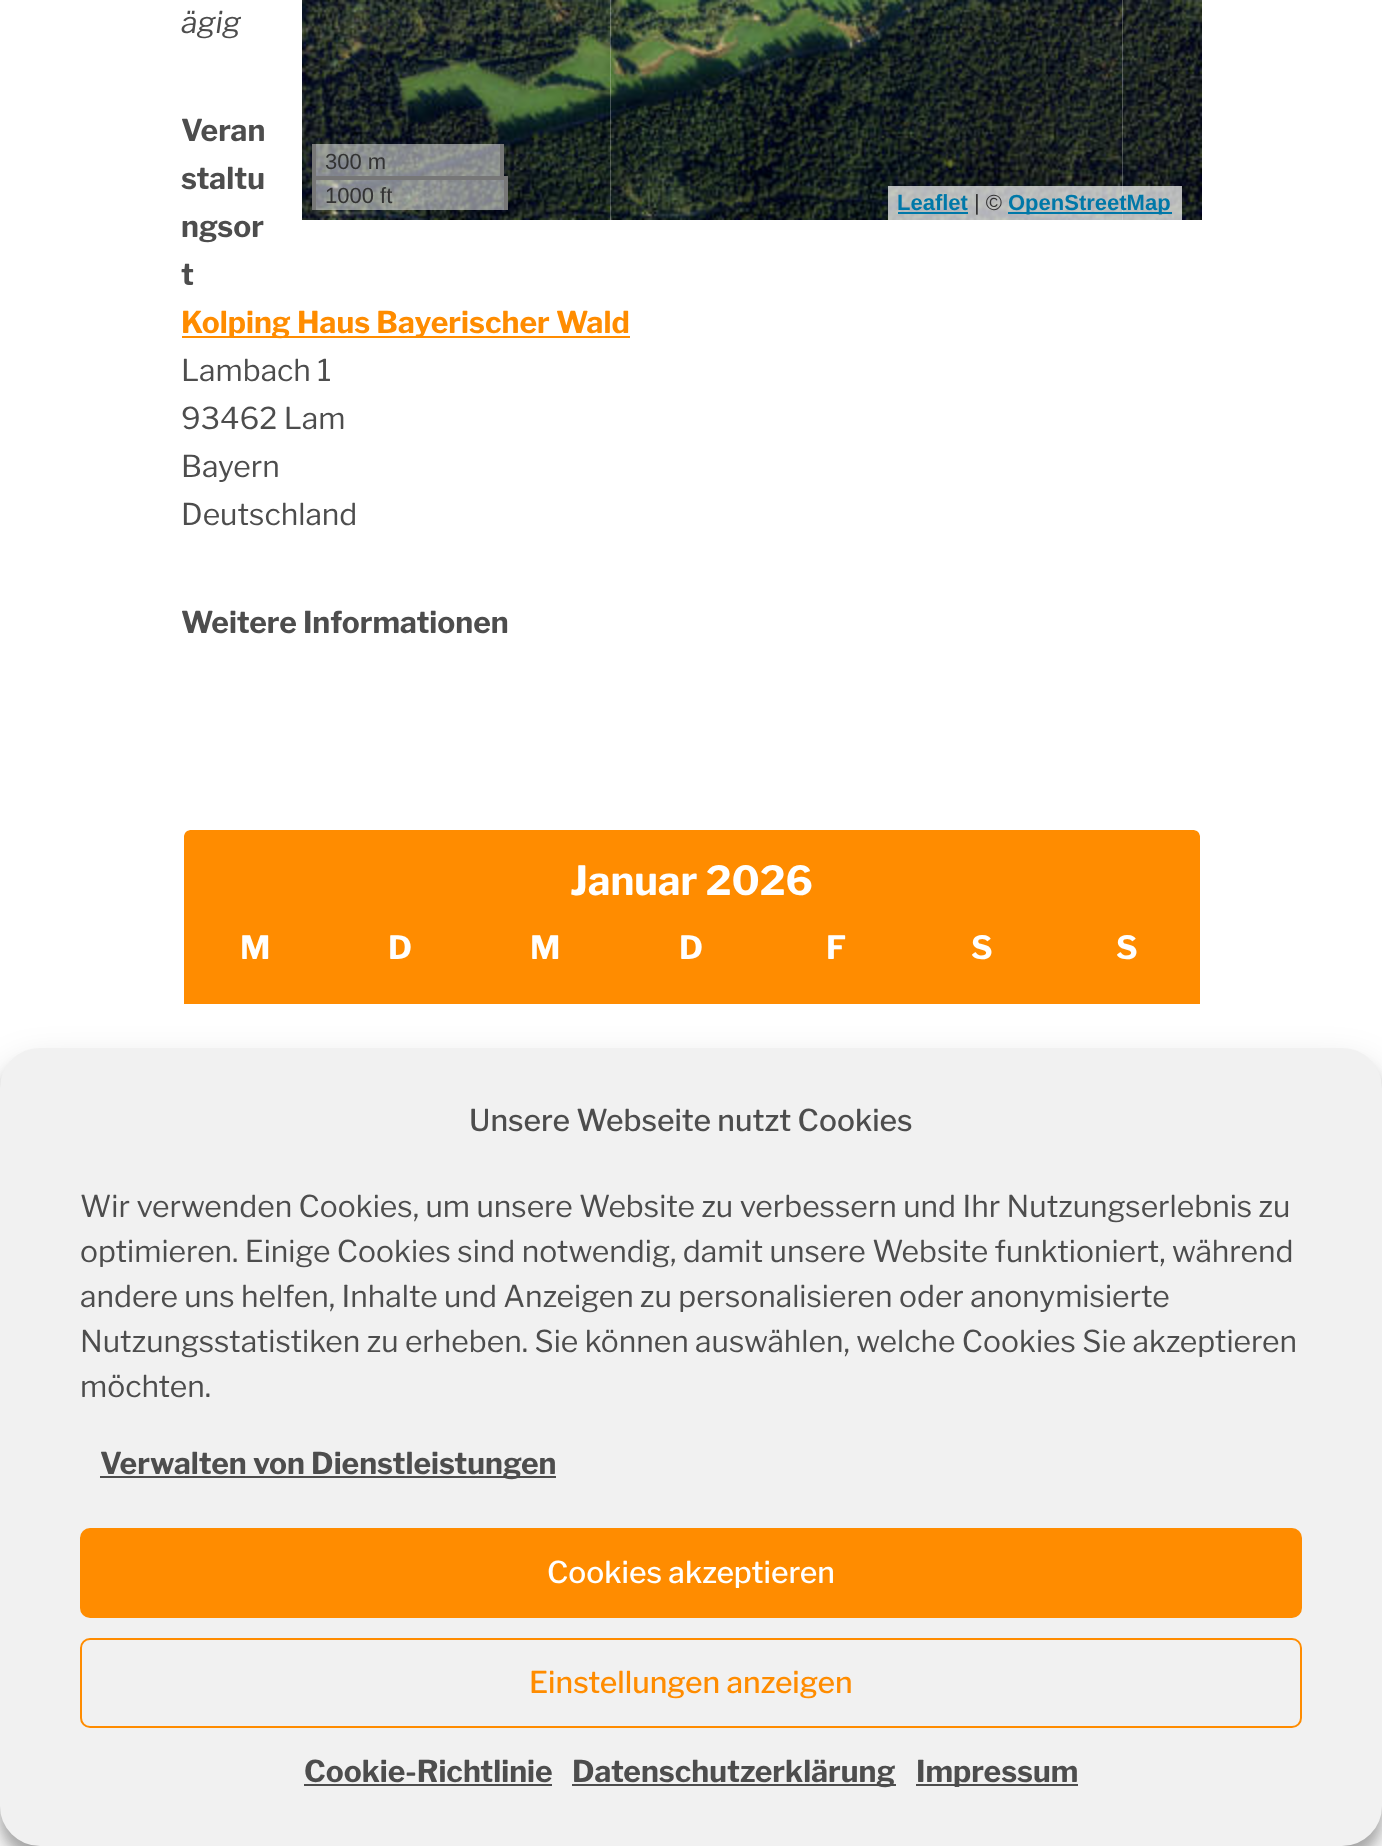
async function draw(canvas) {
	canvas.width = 1382;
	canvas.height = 1846;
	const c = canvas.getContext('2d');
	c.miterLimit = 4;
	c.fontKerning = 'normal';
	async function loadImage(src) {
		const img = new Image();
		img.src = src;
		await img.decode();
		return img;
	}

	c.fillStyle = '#fff';
	c.fillRect(0, 0, 1382, 1846);
	c.font = 'italic 30px Libre Franklin';
	c.fillStyle = '#4d4d4d';
	c.fillText('ägig', 181, 33);
	c.font = 'bold 30px Libre Franklin';
	for (const [text, x, y] of [
		['Veran', 181, 141],
		['staltu', 181, 189],
		['ngsor', 181, 237],
		['t', 181, 285],
	]) {
		c.fillText(text, x, y);
	}
	c.fillStyle = '#ff8c00';
	c.fillRect(182, 336, 448, 2);
	c.fillText('Kolping Haus Bayerischer Wald', 181, 333);
	c.font = '30px Libre Franklin';
	c.fillStyle = '#4d4d4d';
	for (const [text, x, y] of [
		['Lambach 1', 181, 381],
		['93462 Lam', 181, 429],
		['Bayern', 181, 477],
		['Deutschland', 181, 525],
	]) {
		c.fillText(text, x, y);
	}
	c.drawImage(await loadImage('img1.png'), 302, 0, 308, 220);
	c.drawImage(await loadImage('img2.png'), 610, 0, 512, 220);
	c.drawImage(await loadImage('img3.png'), 1121, 0, 81, 220);
	for (const [x, y, w, h, color] of [
		[316, 144, 184, 32, '#ffffff80'],
		[500, 144, 4, 36, '#777'],
		[312, 144, 4, 36, '#777'],
	]) {
		c.fillStyle = color;
		c.fillRect(x, y, w, h);
	}
	c.font = '22px Liberation Sans';
	c.fillStyle = '#333';
	c.fillText('300 m', 325, 169);
	for (const [x, y, w, h, color] of [
		[316, 180, 188, 30, '#ffffff80'],
		[312, 176, 196, 4, '#777'],
		[504, 176, 4, 34, '#777'],
		[312, 176, 4, 34, '#777'],
	]) {
		c.fillStyle = color;
		c.fillRect(x, y, w, h);
	}
	c.fillStyle = '#333';
	c.fillText('1000 ft', 325, 203);
	c.fillStyle = '#ffffffb3';
	c.fillRect(888, 186, 294, 34);
	c.font = 'bold 22px Liberation Sans';
	c.fillStyle = '#0078a8';
	c.fillText('Leaflet', 897, 210);
	c.fillRect(898, 212, 70, 2);
	c.font = '22px Liberation Sans';
	c.fillStyle = '#333';
	c.fillText('| ©', 974, 210);
	c.fillStyle = '#0078a8';
	c.fillRect(1008, 212, 164, 2);
	c.font = 'bold 22px Liberation Sans';
	c.fillText('OpenStreetMap', 1008, 210);
	c.font = 'bold 30px Libre Franklin';
	c.fillStyle = '#4d4d4d';
	c.fillText('Weitere Informationen', 181, 633);
	c.fillStyle = '#ff8c00';
	c.beginPath();
	c.roundRect(184, 830, 1016, 84, [6, 6, 0, 0]);
	c.fill();
	c.fillStyle = '#fff';
	c.beginPath();
	c.moveTo(190, 828);
	c.lineTo(1194, 828);
	c.bezierCurveTo(1198, 828, 1202, 832, 1202, 836);
	c.lineTo(1202, 914);
	c.lineTo(182, 914);
	c.lineTo(182, 836);
	c.bezierCurveTo(182, 832, 186, 828, 190, 828);
	c.closePath();
	c.moveTo(190, 830);
	c.lineTo(1194, 830);
	c.bezierCurveTo(1197, 830, 1200, 833, 1200, 836);
	c.lineTo(1200, 914);
	c.lineTo(184, 914);
	c.lineTo(184, 836);
	c.bezierCurveTo(184, 833, 187, 830, 190, 830);
	c.closePath();
	c.fill('evenodd');
	c.font = 'bold 40px Libre Franklin';
	c.fillText('Januar 2026', 570, 895);
	c.fillStyle = '#ff8c00';
	c.fillRect(184, 914, 1016, 90);
	c.font = 'bold 32px Libre Franklin';
	c.fillStyle = '#fff';
	for (const [text, x, y] of [
		['M', 240, 959],
		['D', 388, 959],
		['M', 530, 959],
		['D', 679, 959],
		['F', 826, 959],
		['S', 971, 959],
		['S', 1116, 959],
	]) {
		c.fillText(text, x, y);
	}
	c.fillStyle = '#0000003b';
	c.filter = 'blur(6px)';
	c.beginPath();
	c.roundRect(0, 1060, 1382, 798, 40);
	c.fill();
	c.filter = 'none';
	c.fillStyle = '#00000030';
	c.filter = 'blur(20px)';
	c.beginPath();
	c.roundRect(0, 1068, 1382, 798, 40);
	c.fill();
	c.filter = 'none';
	c.fillStyle = '#f1f1f1';
	c.fillRect(40, 1068, 1302, 758);
	c.beginPath();
	c.roundRect(10, 1058, 1362, 778, 30);
	c.strokeStyle = '#f1f1f1';
	c.lineWidth = 20;
	c.stroke();
	c.fillRect(1342, 1068, 20, 758);
	c.fillRect(20, 1068, 20, 758);
	c.font = '500 30px Libre Franklin';
	c.fillStyle = '#4d4d4d';
	c.fillText('Unsere Webseite nutzt Cookies', 469, 1131);
	c.font = '30px Libre Franklin';
	for (const [text, x, y] of [
		['Wir verwenden Cookies, um unsere Website zu verbessern und Ihr Nutzungserlebnis zu', 80, 1217],
		['optimieren. Einige Cookies sind notwendig, damit unsere Website funktioniert, während', 80, 1262],
		['andere uns helfen, Inhalte und Anzeigen zu personalisieren oder anonymisierte', 80, 1307],
		['Nutzungsstatistiken zu erheben. Sie können auswählen, welche Cookies Sie akzeptieren', 80, 1352],
		['möchten.', 80, 1397],
	]) {
		c.fillText(text, x, y);
	}
	c.fillRect(100, 1476, 456, 2);
	c.font = 'bold 30px Libre Franklin';
	c.fillText('Verwalten von Dienstleistungen', 100, 1474);
	c.fillStyle = '#ff8c00';
	c.beginPath();
	c.roundRect(81, 1529, 1220, 88, 9);
	c.fill();
	c.strokeStyle = '#ff8c00';
	c.lineWidth = 2;
	c.stroke();
	c.font = '500 30px Libre Franklin';
	c.fillStyle = '#fff';
	c.fillText('Cookies akzeptieren', 547, 1583);
	c.beginPath();
	c.roundRect(81, 1639, 1220, 88, 9);
	c.stroke();
	c.fillStyle = '#ff8c00';
	c.fillText('Einstellungen anzeigen', 529, 1693);
	c.font = 'bold 30px Libre Franklin';
	c.fillStyle = '#4d4d4d';
	c.fillText('Cookie-Richtlinie', 304, 1782);
	c.fillRect(304, 1784, 248, 2);
	c.fillRect(572, 1784, 324, 2);
	c.fillText('Datenschutzerklärung', 572, 1782);
	c.fillRect(916, 1784, 162, 2);
	c.fillText('Impressum', 916, 1782);
}

draw(document.querySelector('canvas'));
